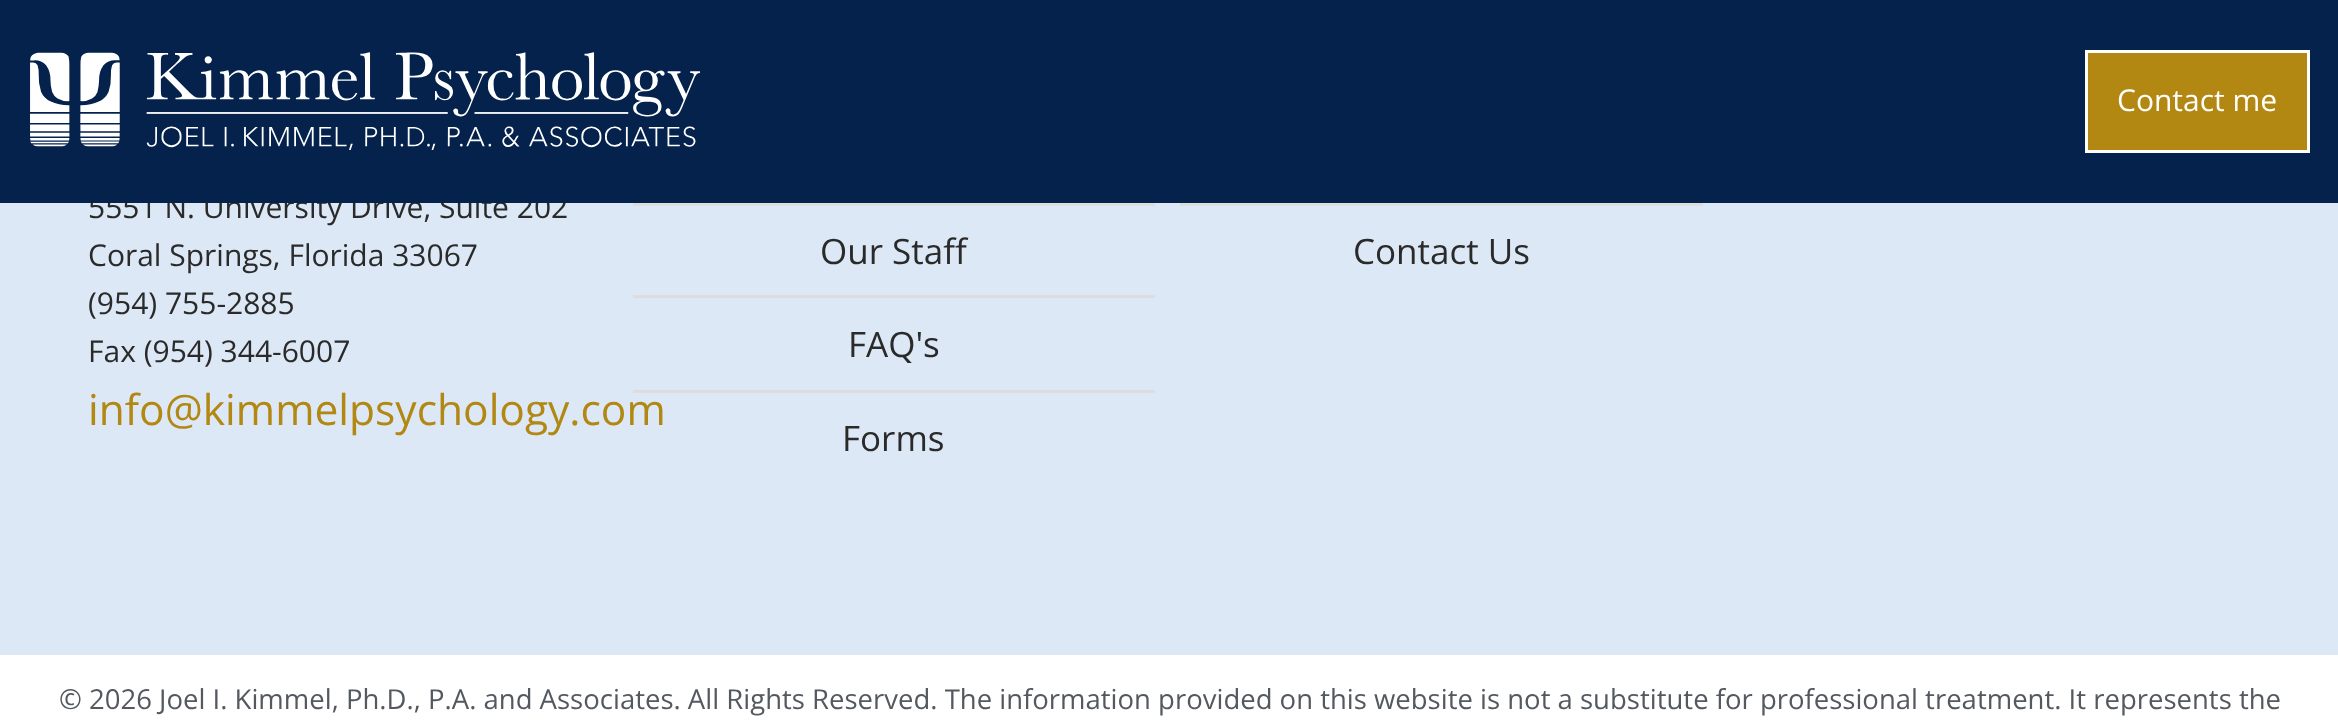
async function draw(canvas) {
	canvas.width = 2338;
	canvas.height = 727;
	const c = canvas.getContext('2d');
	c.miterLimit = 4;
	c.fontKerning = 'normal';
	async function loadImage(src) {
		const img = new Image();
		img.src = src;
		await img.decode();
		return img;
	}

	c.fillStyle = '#fff';
	c.fillRect(0, 0, 2338, 727);
	c.fillStyle = '#dce8f6';
	c.fillRect(0, 203, 2338, 452);
	c.font = '30px Open Sans';
	c.fillStyle = '#2a2a2a';
	c.fillText('5551 N. University Drive, Suite 202', 88, 218);
	c.fillStyle = '#04224b';
	c.fillRect(0, 0, 2338, 203);
	c.drawImage(await loadImage('img1.png'), 30, 52, 670, 98);
	c.fillStyle = '#b28712';
	c.beginPath();
	c.rect(2086.5, 51.5, 222, 100);
	c.fill();
	c.strokeStyle = '#fff';
	c.lineWidth = 3;
	c.stroke();
	c.fillStyle = '#fff';
	c.fillText('Contact me', 2117, 111);
	c.fillStyle = '#2a2a2a';
	for (const [text, x, y] of [
		['Coral Springs, Florida 33067', 88, 266],
		['(954) 755-2885', 88, 314],
		['Fax (954) 344-6007', 88, 362],
	]) {
		c.fillText(text, x, y);
	}
	c.font = '42.5px Open Sans';
	c.fillStyle = '#b28712';
	c.fillText('info@kimmelpsychology.com', 88, 425);
	c.fillStyle = '#ddd';
	c.fillRect(633, 203, 522, 3);
	c.font = '35px Open Sans';
	c.fillStyle = '#2a2a2a';
	c.fillText('Our Staff', 820, 264);
	c.fillStyle = '#ddd';
	c.fillRect(633, 295, 522, 3);
	c.fillStyle = '#2a2a2a';
	c.fillText('FAQ\'s', 848, 357);
	c.fillStyle = '#ddd';
	c.fillRect(633, 390, 522, 3);
	c.fillStyle = '#2a2a2a';
	c.fillText('Forms', 842, 451);
	c.fillStyle = '#ddd';
	c.fillRect(1180, 203, 523, 3);
	c.fillStyle = '#2a2a2a';
	c.fillText('Contact Us', 1353, 264);
	c.font = '27.5px Open Sans';
	c.fillStyle = '#54595f';
	c.fillText('© 2026 Joel I. Kimmel, Ph.D., P.A. and Associates. All Rights Reserved. The information provided on this website is not a substitute for professional treatment. It represents the', 59, 709);
}

draw(document.querySelector('canvas'));
